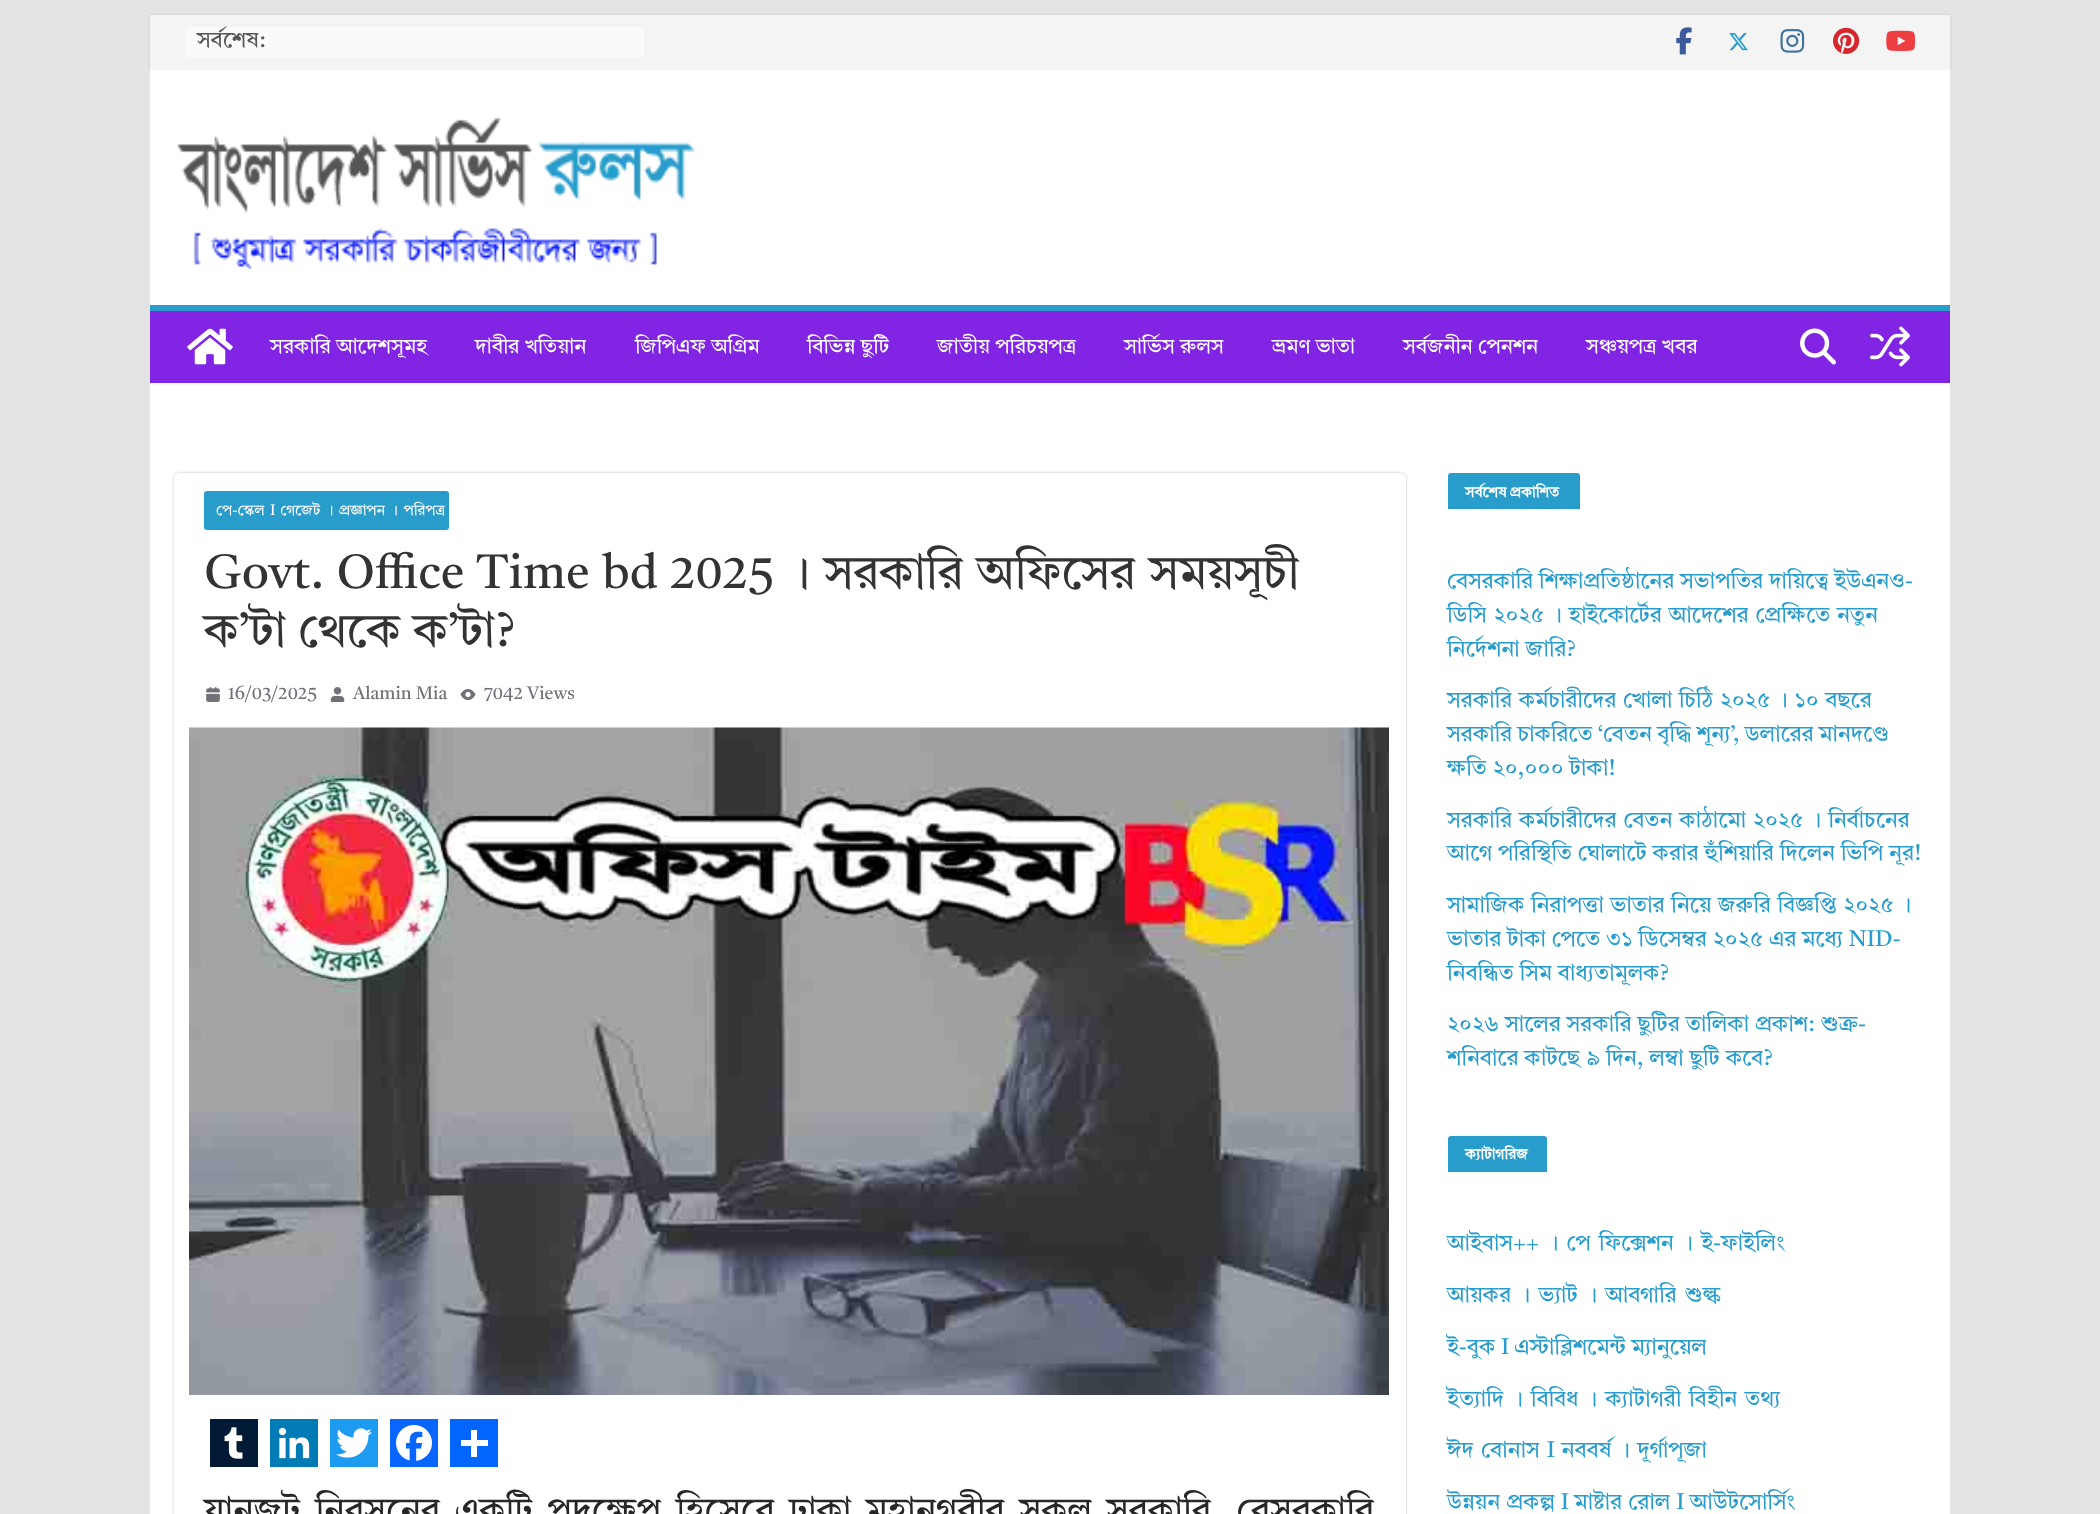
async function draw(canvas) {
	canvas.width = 2100;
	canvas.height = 1514;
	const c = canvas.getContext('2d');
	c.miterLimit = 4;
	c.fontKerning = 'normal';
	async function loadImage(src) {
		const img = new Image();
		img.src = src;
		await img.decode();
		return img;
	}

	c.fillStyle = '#e4e4e7';
	c.fillRect(0, 0, 2100, 1514);
	c.fillStyle = '#fff';
	c.fillRect(150, 69, 1800, 236);
	c.fillStyle = '#0000001a';
	c.filter = 'blur(1.5px)';
	c.beginPath();
	c.rect(150, 15, 1800, 54);
	c.fill();
	c.filter = 'none';
	c.fillStyle = '#f4f4f5';
	c.fillRect(150, 15, 1800, 54);
	c.fillStyle = '#fafafa';
	c.fillRect(185, 27, 459, 30);
	c.font = '22.5px Tiro Bangla';
	c.fillStyle = '#555';
	c.fillText('সর্বশেষ:', 197, 47);
	c.drawImage(await loadImage('img1.png'), 1676, 27, 16, 28);
	c.drawImage(await loadImage('img2.png'), 1729, 33, 19, 18);
	c.drawImage(await loadImage('img3.png'), 1780, 29, 25, 24);
	c.drawImage(await loadImage('img4.png'), 1833, 27, 27, 27);
	c.drawImage(await loadImage('img5.png'), 1886, 30, 30, 21);
	c.drawImage(await loadImage('img6.png'), 177, 117, 519, 152);
	c.fillStyle = '#8224e3';
	c.fillRect(150, 311, 1800, 72);
	c.fillStyle = '#289dcc';
	c.fillRect(150, 305, 1800, 6);
	c.drawImage(await loadImage('img7.png'), 187, 328, 46, 37);
	c.font = '21px Tiro Bangla';
	c.fillStyle = '#fff';
	for (const [text, x, y] of [
		['সরকারি আদেশসূমহ', 270, 353],
		['দাবীর খতিয়ান', 475, 353],
		['জিপিএফ অগ্রিম', 635, 353],
		['বিভিন্ন ছুটি', 807, 353],
		['জাতীয় পরিচয়পত্র', 937, 353],
		['সার্ভিস রুলস', 1124, 353],
		['ভ্রমণ ভাতা', 1272, 353],
		['সর্বজনীন পেনশন', 1403, 353],
		['সঞ্চয়পত্র খবর', 1586, 353],
	]) {
		c.fillText(text, x, y);
	}
	c.drawImage(await loadImage('img8.png'), 1800, 328, 36, 37);
	c.drawImage(await loadImage('img9.png'), 1869, 326, 41, 41);
	c.fillRect(150, 383, 1800, 1131);
	c.save();
	c.beginPath();
	c.moveTo(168, 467);
	c.lineTo(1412, 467);
	c.lineTo(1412, 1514);
	c.lineTo(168, 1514);
	c.closePath();
	c.moveTo(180, 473);
	c.lineTo(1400, 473);
	c.bezierCurveTo(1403.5, 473, 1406, 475.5, 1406, 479);
	c.lineTo(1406, 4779);
	c.bezierCurveTo(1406, 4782.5, 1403.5, 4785, 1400, 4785);
	c.lineTo(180, 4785);
	c.bezierCurveTo(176.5, 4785, 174, 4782.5, 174, 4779);
	c.lineTo(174, 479);
	c.bezierCurveTo(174, 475.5, 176.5, 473, 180, 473);
	c.closePath();
	c.clip('evenodd');
	c.fillStyle = '#0000003d';
	c.filter = 'blur(1.5px)';
	c.beginPath();
	c.roundRect(174, 473, 1232, 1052, 6);
	c.fill();
	c.filter = 'none';
	c.restore();
	c.fillStyle = '#289dcc';
	c.beginPath();
	c.roundRect(204, 491, 245, 39, 3);
	c.fill();
	c.wordSpacing = '1.5px';
	c.font = '15px Tiro Bangla';
	c.fillStyle = '#fff';
	c.fillText('পে-স্কেল I গেজেট । প্রজ্ঞাপন । পরিপত্র', 216, 515);
	c.font = '48px Tiro Bangla';
	c.fillStyle = '#333';
	c.fillText('Govt. Office Time bd 2025 । সরকারি অফিসের সময়সূচী', 204, 588);
	c.wordSpacing = '0px';
	c.fillText('ক’টা থেকে ক’টা?', 204, 646);
	c.drawImage(await loadImage('img10.png'), 206, 687, 14, 15);
	c.font = '18px Tiro Bangla';
	c.fillStyle = '#71717a';
	c.fillText('16/03/2025', 228, 699);
	c.drawImage(await loadImage('img11.png'), 330, 687, 15, 15);
	c.fillText('Alamin Mia', 353, 699);
	c.drawImage(await loadImage('img12.png'), 460, 689, 16, 12);
	c.fillText('7042 Views', 484, 699);
	c.drawImage(await loadImage('img13.png'), 189, 727, 1200, 668);
	c.fillStyle = '#001935';
	c.fillRect(210, 1419, 48, 48);
	c.drawImage(await loadImage('img14.png'), 224, 1427, 19, 32);
	c.fillStyle = '#007bb5';
	c.fillRect(270, 1419, 48, 48);
	c.drawImage(await loadImage('img15.png'), 278, 1427, 32, 32);
	c.fillStyle = '#1d9bf0';
	c.fillRect(330, 1419, 48, 48);
	c.drawImage(await loadImage('img16.png'), 336, 1428, 36, 30);
	c.fillStyle = '#0866ff';
	c.fillRect(390, 1419, 48, 48);
	c.drawImage(await loadImage('img17.png'), 396, 1425, 36, 36);
	for (const [x, y, w, h, color] of [
		[450, 1419, 48, 48, '#0166ff'],
		[471, 1430, 6, 27, '#fff'],
		[461, 1440, 27, 6, '#fff'],
	]) {
		c.fillStyle = color;
		c.fillRect(x, y, w, h);
	}
	c.wordSpacing = '5.5px';
	c.font = '36px Tiro Bangla';
	c.fillStyle = '#27272a';
	c.fillText('যানজট নিরসনের একটি পদক্ষেপ হিসেবে ঢাকা মহানগরীর সকল সরকারি, বেসরকারি', 204, 1522);
	c.fillStyle = '#289dcc';
	c.beginPath();
	c.roundRect(1448, 473, 132, 36, [3, 3, 0, 0]);
	c.fill();
	c.letterSpacing = '0.1px';
	c.wordSpacing = '-1px';
	c.font = 'bold 15px Tiro Bangla';
	c.fillStyle = '#fff';
	c.fillText('সর্বশেষ প্রকাশিত', 1465, 497);
	c.letterSpacing = '0px';
	c.wordSpacing = '0px';
	c.font = '22.5px Tiro Bangla';
	c.fillStyle = '#289dcc';
	c.fillText('বেসরকারি শিক্ষাপ্রতিষ্ঠানের সভাপতির দায়িত্বে ইউএনও-', 1447, 588);
	c.wordSpacing = '1px';
	c.fillText('ডিসি ২০২৫ । হাইকোর্টের আদেশের প্রেক্ষিতে নতুন', 1447, 622);
	c.wordSpacing = '0px';
	c.fillText('নির্দেশনা জারি?', 1447, 656);
	c.wordSpacing = '0.75px';
	c.fillText('সরকারি কর্মচারীদের খোলা চিঠি ২০২৫ । ১০ বছরে', 1447, 707);
	c.wordSpacing = '-0.5px';
	c.fillText('সরকারি চাকরিতে ‘বেতন বৃদ্ধি শূন্য’, ডলারের মানদণ্ডে', 1447, 741);
	c.wordSpacing = '0px';
	c.fillText('ক্ষতি ২০,০০০ টাকা!', 1447, 775);
	c.wordSpacing = '1px';
	c.fillText('সরকারি কর্মচারীদের বেতন কাঠামো ২০২৫ । নির্বাচনের', 1447, 827);
	c.wordSpacing = '0px';
	c.fillText('আগে পরিস্থিতি ঘোলাটে করার হুঁশিয়ারি দিলেন ভিপি নূর!', 1447, 860);
	c.wordSpacing = '0.75px';
	c.fillText('সামাজিক নিরাপত্তা ভাতার নিয়ে জরুরি বিজ্ঞপ্তি ২০২৫ ।', 1447, 912);
	c.wordSpacing = '0px';
	for (const [text, x, y] of [
		['ভাতার', 1447, 946],
		['টাকা পেতে ৩১ ডিসেম্বর ২০২৫ এর মধ্যে NID-', 1507, 946],
		['নিবন্ধিত সিম বাধ্যতামূলক?', 1447, 980],
		['২০২৬ সালের সরকারি ছুটির তালিকা প্রকাশ: শুক্র-', 1447, 1031],
		['শনিবারে কাটছে ৯ দিন, লম্বা ছুটি কবে?', 1447, 1065],
	]) {
		c.fillText(text, x, y);
	}
	c.beginPath();
	c.roundRect(1448, 1136, 99, 36, [3, 3, 0, 0]);
	c.fill();
	c.letterSpacing = '0.1px';
	c.font = 'bold 15px Tiro Bangla';
	c.fillStyle = '#fff';
	c.fillText('ক্যাটাগরিজ', 1465, 1159);
	c.letterSpacing = '0px';
	c.wordSpacing = '2.25px';
	c.font = '22.5px Tiro Bangla';
	c.fillStyle = '#289dcc';
	c.fillText('আইবাস++ । পে ফিক্সেশন । ই-ফাইলিং', 1447, 1250);
	c.fillText('আয়কর । ভ্যাট । আবগারি শুল্ক', 1447, 1302);
	c.wordSpacing = '0px';
	c.fillText('ই-বুক I এস্টাব্লিশমেন্ট ম্যানুয়েল', 1447, 1354);
	c.wordSpacing = '2px';
	c.fillText('ইত্যাদি । বিবিধ । ক্যাটাগরী বিহীন তথ্য', 1447, 1406);
	c.wordSpacing = '1.5px';
	c.fillText('ঈদ বোনাস I নববর্ষ । দূর্গাপূজা', 1447, 1457);
	c.wordSpacing = '0.25px';
	c.fillText('উন্নয়ন প্রকল্প I মাষ্টার রোল I আউটসোর্সিং', 1447, 1509);
}

draw(document.querySelector('canvas'));
